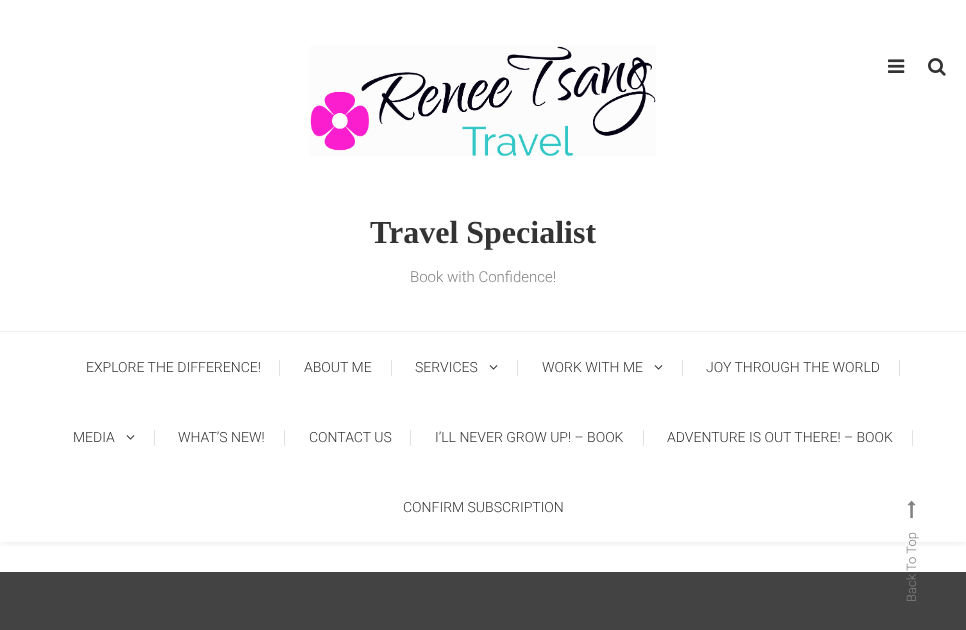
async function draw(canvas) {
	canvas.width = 966;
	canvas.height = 630;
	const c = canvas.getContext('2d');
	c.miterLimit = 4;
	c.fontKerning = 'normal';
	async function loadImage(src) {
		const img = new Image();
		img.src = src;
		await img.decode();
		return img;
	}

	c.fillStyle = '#fff';
	c.fillRect(0, 0, 966, 630);
	c.save();
	c.beginPath();
	c.rect(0, 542, 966, 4);
	c.clip();
	c.fillStyle = '#0000001a';
	c.filter = 'blur(5px)';
	c.beginPath();
	c.rect(0, 0, 966, 542);
	c.fill();
	c.filter = 'none';
	c.restore();
	c.drawImage(await loadImage('img1.png'), 888, 59, 17, 14);
	c.drawImage(await loadImage('img2.png'), 928, 58, 18, 18);
	c.drawImage(await loadImage('img3.png'), 310, 46, 346, 110);
	c.font = 'bold 32px Liberation Serif';
	c.fillStyle = '#333';
	c.fillText('Travel Specialist', 370, 243);
	c.font = '300 15px Roboto';
	c.fillStyle = '#838383';
	c.fillText('Book with Confidence!', 410, 282);
	c.fillStyle = '#eee';
	c.fillRect(0, 331, 966, 1);
	c.font = '300 14px Roboto';
	c.fillStyle = '#333';
	c.fillText('EXPLORE THE DIFFERENCE!', 86, 372);
	c.fillStyle = '#e1e1e1';
	c.fillRect(279, 360, 1, 16);
	c.fillStyle = '#333';
	c.fillText('ABOUT ME', 304, 372);
	c.fillStyle = '#e1e1e1';
	c.fillRect(391, 360, 1, 16);
	c.fillStyle = '#333';
	c.fillText('SERVICES', 415, 372);
	c.drawImage(await loadImage('img4.png'), 489, 365, 9, 5);
	c.fillStyle = '#e1e1e1';
	c.fillRect(517, 360, 1, 16);
	c.fillStyle = '#333';
	c.fillText('WORK WITH ME', 542, 372);
	c.drawImage(await loadImage('img4.png'), 654, 365, 9, 5);
	c.fillStyle = '#e1e1e1';
	c.fillRect(682, 360, 1, 16);
	c.fillStyle = '#333';
	c.fillText('JOY THROUGH THE WORLD', 706, 372);
	c.fillStyle = '#e1e1e1';
	c.fillRect(899, 360, 1, 16);
	c.fillStyle = '#333';
	c.fillText('MEDIA', 73, 442);
	c.drawImage(await loadImage('img4.png'), 126, 435, 9, 5);
	c.fillStyle = '#e1e1e1';
	c.fillRect(154, 430, 1, 16);
	c.fillStyle = '#333';
	c.fillText('WHAT’S NEW!', 178, 442);
	c.fillStyle = '#e1e1e1';
	c.fillRect(284, 430, 1, 16);
	c.fillStyle = '#333';
	c.fillText('CONTACT US', 309, 442);
	c.fillStyle = '#e1e1e1';
	c.fillRect(410, 430, 1, 16);
	c.fillStyle = '#333';
	c.fillText('I’LL NEVER GROW UP! – BOOK', 435, 442);
	c.fillStyle = '#e1e1e1';
	c.fillRect(643, 430, 1, 16);
	c.fillStyle = '#333';
	c.fillText('ADVENTURE IS OUT THERE! – BOOK', 667, 442);
	c.fillStyle = '#e1e1e1';
	c.fillRect(912, 430, 1, 16);
	c.fillStyle = '#333';
	c.fillText('CONFIRM SUBSCRIPTION', 403, 512);
	c.drawImage(await loadImage('img5.png'), 907, 500, 9, 19);
	c.fillStyle = '#434343';
	c.fillRect(0, 572, 966, 58);
	c.font = '300 13px Roboto';
	c.fillStyle = '#838383';
	c.save();
	c.translate(916, 602);
	c.rotate(-90 * Math.PI / 180);
	c.fillText('Back To Top', 0, 0);
	c.restore();
}

draw(document.querySelector('canvas'));
